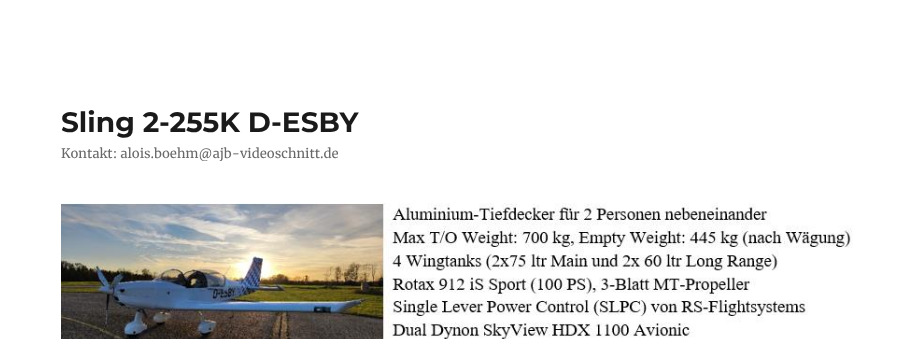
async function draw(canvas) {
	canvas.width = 914;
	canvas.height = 360;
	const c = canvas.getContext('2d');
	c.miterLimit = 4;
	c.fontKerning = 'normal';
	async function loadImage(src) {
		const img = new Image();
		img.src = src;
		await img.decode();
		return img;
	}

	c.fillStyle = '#fff';
	c.fillRect(0, 0, 914, 360);
	c.font = '100 28px Montserrat';
	c.fillStyle = '#1a1a1a';
	c.fillText('Sling 2-255K D-ESBY', 61, 132);
	c.save();
	c.beginPath();
	c.rect(61, 105, 297, 56);
	c.clip();
	c.font = '13px Merriweather';
	c.fillStyle = '#686868';
	c.fillText('Kontakt: alois.boehm@ajb-videoschnitt.de', 61, 158);
	c.restore();
	c.drawImage(await loadImage('img1.png'), 61, 203, 792, 136);
}

draw(document.querySelector('canvas'));
